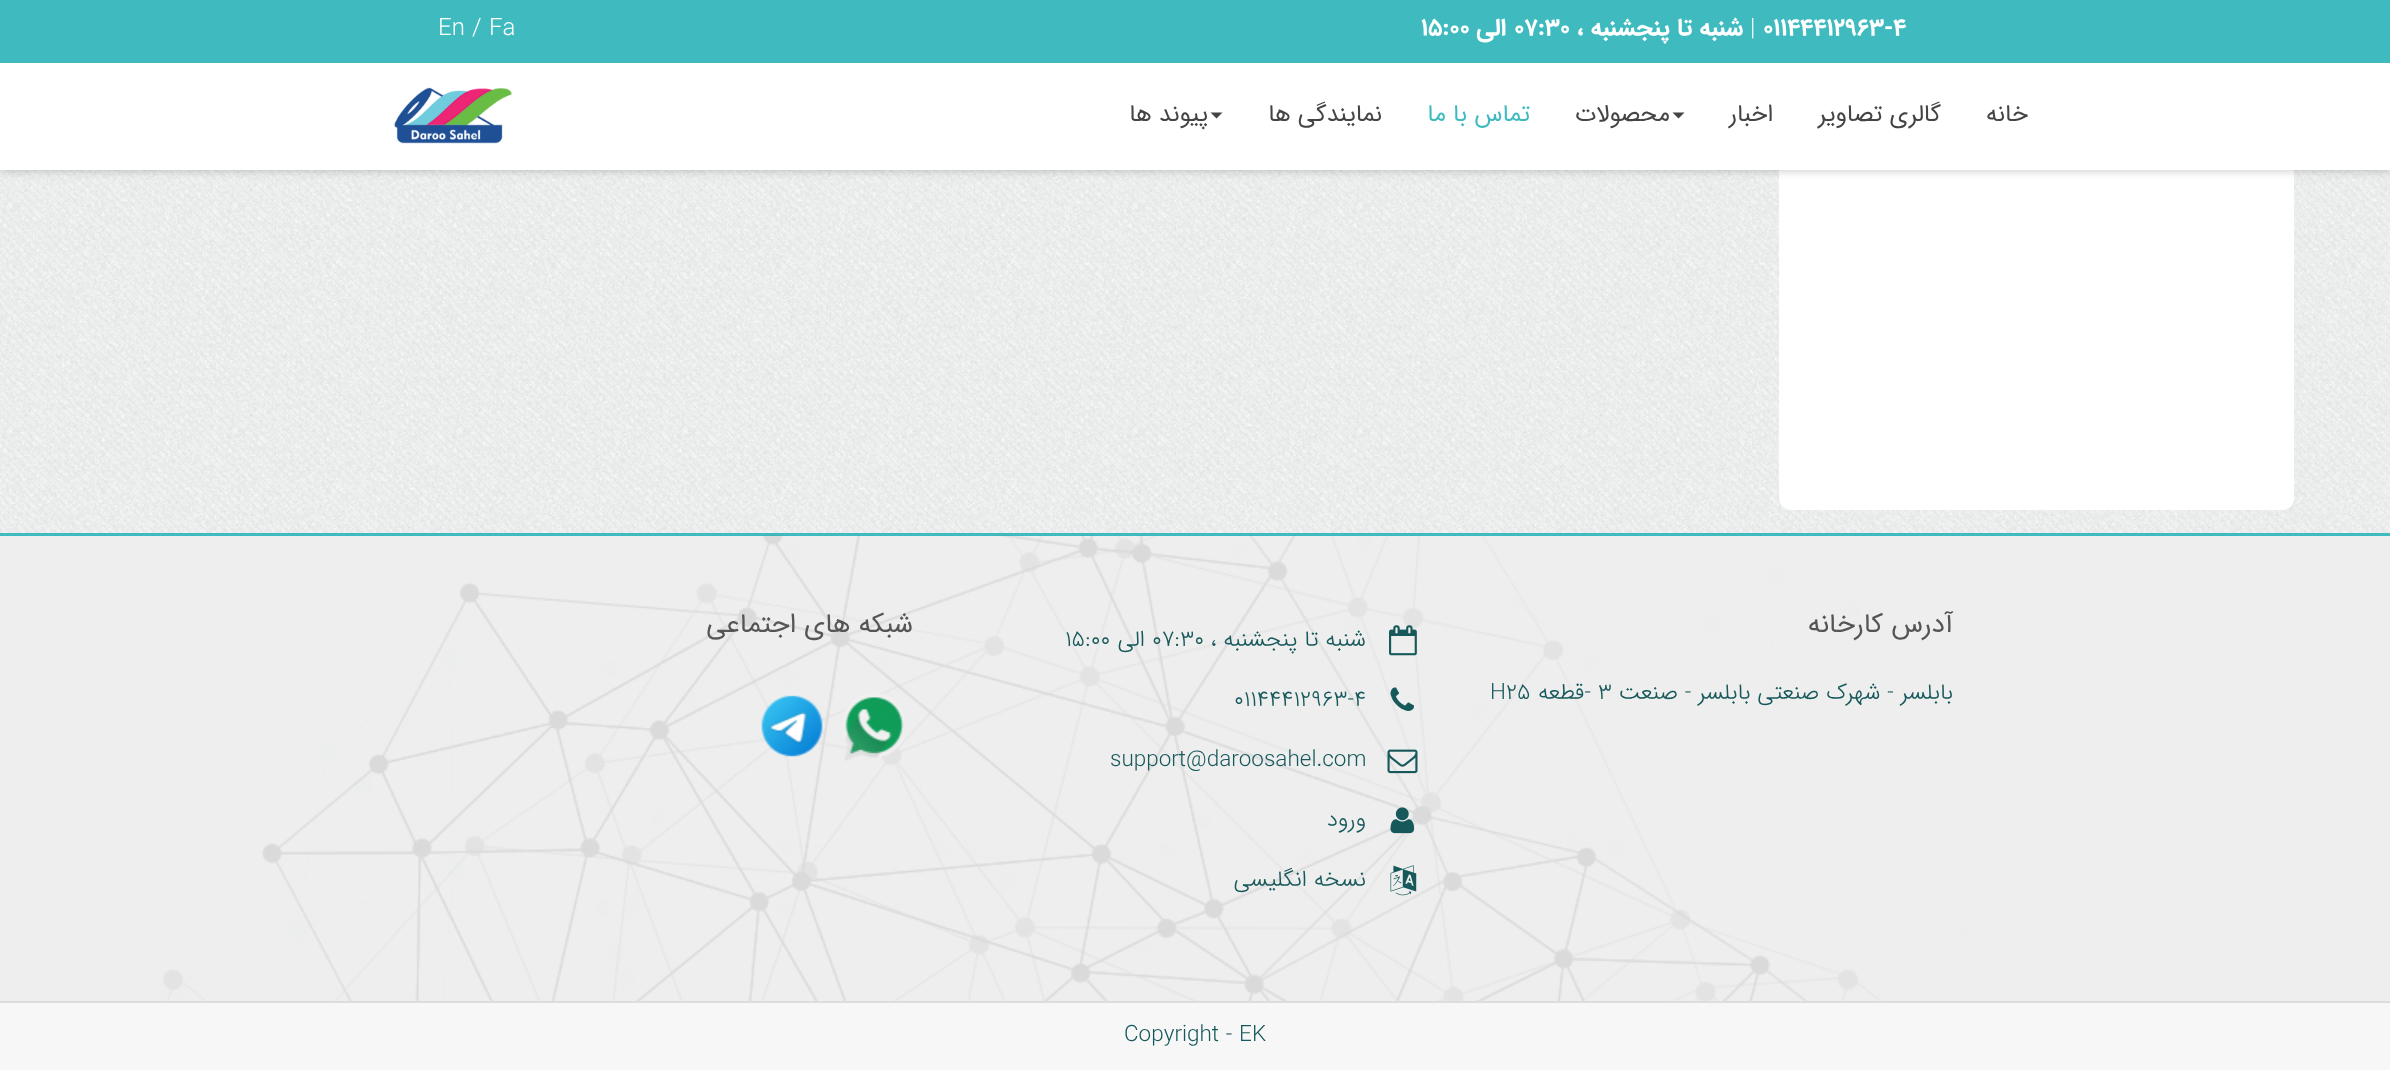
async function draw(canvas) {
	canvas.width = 2390;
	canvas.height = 1070;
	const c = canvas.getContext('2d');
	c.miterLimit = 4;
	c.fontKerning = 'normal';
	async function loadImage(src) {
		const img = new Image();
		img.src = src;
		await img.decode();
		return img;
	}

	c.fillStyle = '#fff';
	c.fillRect(0, 0, 2390, 1070);
	c.drawImage(await loadImage('img1.png'), 0, 170, 2390, 363);
	c.beginPath();
	c.roundRect(1779, -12, 515, 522, 12);
	c.fill();
	c.fillStyle = '#00000033';
	c.filter = 'blur(4.5px)';
	c.beginPath();
	c.rect(0, 2, 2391, 169);
	c.fill();
	c.filter = 'none';
	c.fillStyle = '#fff';
	c.fillRect(0, 63, 2390, 107);
	c.fillStyle = '#3fbbc0';
	c.fillRect(0, 0, 2390, 63);
	c.font = 'bold 24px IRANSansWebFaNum';
	c.fillStyle = '#fff';
	c.fillText('۰۱۱44412963-4', 1763, 35);
	c.font = '300 24px IRANSansWebFaNum';
	c.fillText('|', 1750, 35);
	c.direction = 'rtl';
	c.font = 'bold 24px IRANSansWebFaNum';
	c.fillText('شنبه تا پنجشنبه ،', 1743, 35);
	c.direction = 'ltr';
	c.fillText('۰۷:۳۰', 1514, 35);
	c.direction = 'rtl';
	c.fillText('الی', 1506, 35);
	c.direction = 'ltr';
	c.fillText('۱۵:۰۰', 1421, 35);
	c.font = '300 24px IRANSansWebFaNum';
	c.fillText('En / Fa', 438, 35);
	c.direction = 'rtl';
	c.font = '24px IRANSansWebFaNum';
	c.fillStyle = '#444';
	for (const [text, x, y] of [
		['خانه', 2028, 121],
		['گالری تصاویر', 1941, 121],
		['اخبار', 1773, 121],
	]) {
		c.fillText(text, x, y);
	}
	c.beginPath();
	c.moveTo(1672.5, 112.5);
	c.lineTo(1684.5, 112.5);
	c.lineTo(1678.5, 118.5);
	c.closePath();
	c.fill();
	c.fillText('محصولات', 1670, 121);
	c.fillStyle = '#3fbbc0';
	c.fillText('تماس با ما', 1530, 121);
	c.fillStyle = '#444';
	c.fillText('نمایندگی ها', 1382, 121);
	c.beginPath();
	c.moveTo(1210.5, 112.5);
	c.lineTo(1222.5, 112.5);
	c.lineTo(1216.5, 118.5);
	c.closePath();
	c.fill();
	c.fillText('پیوند ها', 1208, 121);
	c.drawImage(await loadImage('img2.png'), 394, 87, 118, 57);
	c.fillStyle = '#3fbbc0';
	c.fillRect(0, 533, 2390, 3);
	c.fillStyle = '#eee';
	c.fillRect(0, 536, 2390, 465);
	c.drawImage(await loadImage('img3.png'), 159, 535, 1810, 466);
	c.font = '27px IRANSansWebFaNum';
	c.fillStyle = '#555';
	c.fillText('آدرس کارخانه', 1953, 632);
	c.font = '300 22.5px IRANSansWebFaNum';
	c.fillStyle = '#17595b';
	c.fillText('بابلسر - شهرک صنعتی بابلسر - صنعت', 1953, 699);
	c.direction = 'ltr';
	c.fillText('3', 1598, 699);
	c.direction = 'rtl';
	c.fillText('-قطعه', 1591, 699);
	c.direction = 'ltr';
	c.fillText('H25', 1490, 699);
	c.direction = 'rtl';
	c.font = '27px IRANSansWebFaNum';
	c.fillStyle = '#555';
	c.fillText('شبکه های اجتماعی', 913, 632);
	c.drawImage(await loadImage('img4.png'), 844, 693, 60, 68);
	c.drawImage(await loadImage('img5.png'), 761, 695, 62, 62);
	c.drawImage(await loadImage('img6.png'), 1389, 625, 28, 31);
	c.font = '300 22.5px IRANSansWebFaNum';
	c.fillStyle = '#17595b';
	c.fillText('شنبه تا پنجشنبه ،', 1366, 646);
	c.direction = 'ltr';
	c.fillText('۰۷:۳۰', 1152, 646);
	c.direction = 'rtl';
	c.fillText('الی', 1145, 646);
	c.direction = 'ltr';
	c.fillText('۱۵:۰۰', 1065, 646);
	c.drawImage(await loadImage('img7.png'), 1390, 687, 24, 24);
	c.fillText('۰۱۱44412963-4', 1234, 706);
	c.drawImage(await loadImage('img8.png'), 1387, 749, 31, 25);
	c.fillText('support@daroosahel.com', 1110, 766);
	c.drawImage(await loadImage('img9.png'), 1390, 807, 25, 27);
	c.direction = 'rtl';
	c.fillText('ورود', 1366, 826);
	c.drawImage(await loadImage('img10.png'), 1390, 865, 27, 31);
	c.fillText('نسخه انگلیسی', 1366, 886);
	c.fillStyle = '#f7f7f7';
	c.fillRect(0, 1003, 2390, 67);
	c.fillStyle = '#ddd';
	c.fillRect(0, 1001, 2390, 2);
	c.direction = 'ltr';
	c.fillStyle = '#17595b';
	c.fillText('Copyright - EK', 1124, 1041);
}

draw(document.querySelector('canvas'));
